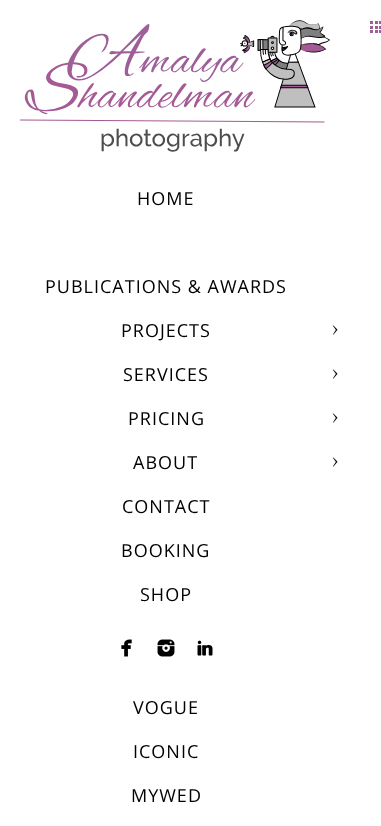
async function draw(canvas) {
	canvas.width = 381;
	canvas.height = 826;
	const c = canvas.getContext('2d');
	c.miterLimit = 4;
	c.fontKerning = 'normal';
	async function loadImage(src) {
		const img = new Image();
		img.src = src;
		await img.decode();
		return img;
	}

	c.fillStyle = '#fff';
	c.fillRect(0, 0, 381, 826);
	c.drawImage(await loadImage('img1.png'), 370, 21, 11, 12);
	c.drawImage(await loadImage('img2.png'), 20, 20, 310, 132);
	c.letterSpacing = '1px';
	c.font = '18px Open Sans';
	c.fillStyle = '#000';
	for (const [text, x, y] of [
		['HOME', 137, 205],
		['PUBLICATIONS & AWARDS', 45, 293],
		['PROJECTS', 121, 337],
	]) {
		c.fillText(text, x, y);
	}
	c.drawImage(await loadImage('img3.png'), 332, 325, 6, 10);
	c.fillText('SERVICES', 123, 381);
	c.drawImage(await loadImage('img3.png'), 332, 369, 6, 10);
	c.fillText('PRICING', 128, 425);
	c.drawImage(await loadImage('img3.png'), 332, 413, 6, 10);
	c.fillText('ABOUT', 133, 469);
	c.drawImage(await loadImage('img3.png'), 332, 457, 6, 10);
	for (const [text, x, y] of [
		['CONTACT', 122, 513],
		['BOOKING', 121, 557],
		['SHOP', 140, 601],
	]) {
		c.fillText(text, x, y);
	}
	c.drawImage(await loadImage('img4.png'), 121, 639, 11, 18);
	c.drawImage(await loadImage('img5.png'), 157, 639, 18, 18);
	c.drawImage(await loadImage('img6.png'), 197, 640, 16, 16);
	for (const [text, x, y] of [
		['VOGUE', 133, 714],
		['ICONIC', 133, 758],
		['MYWED', 131, 802],
	]) {
		c.fillText(text, x, y);
	}
}

draw(document.querySelector('canvas'));
